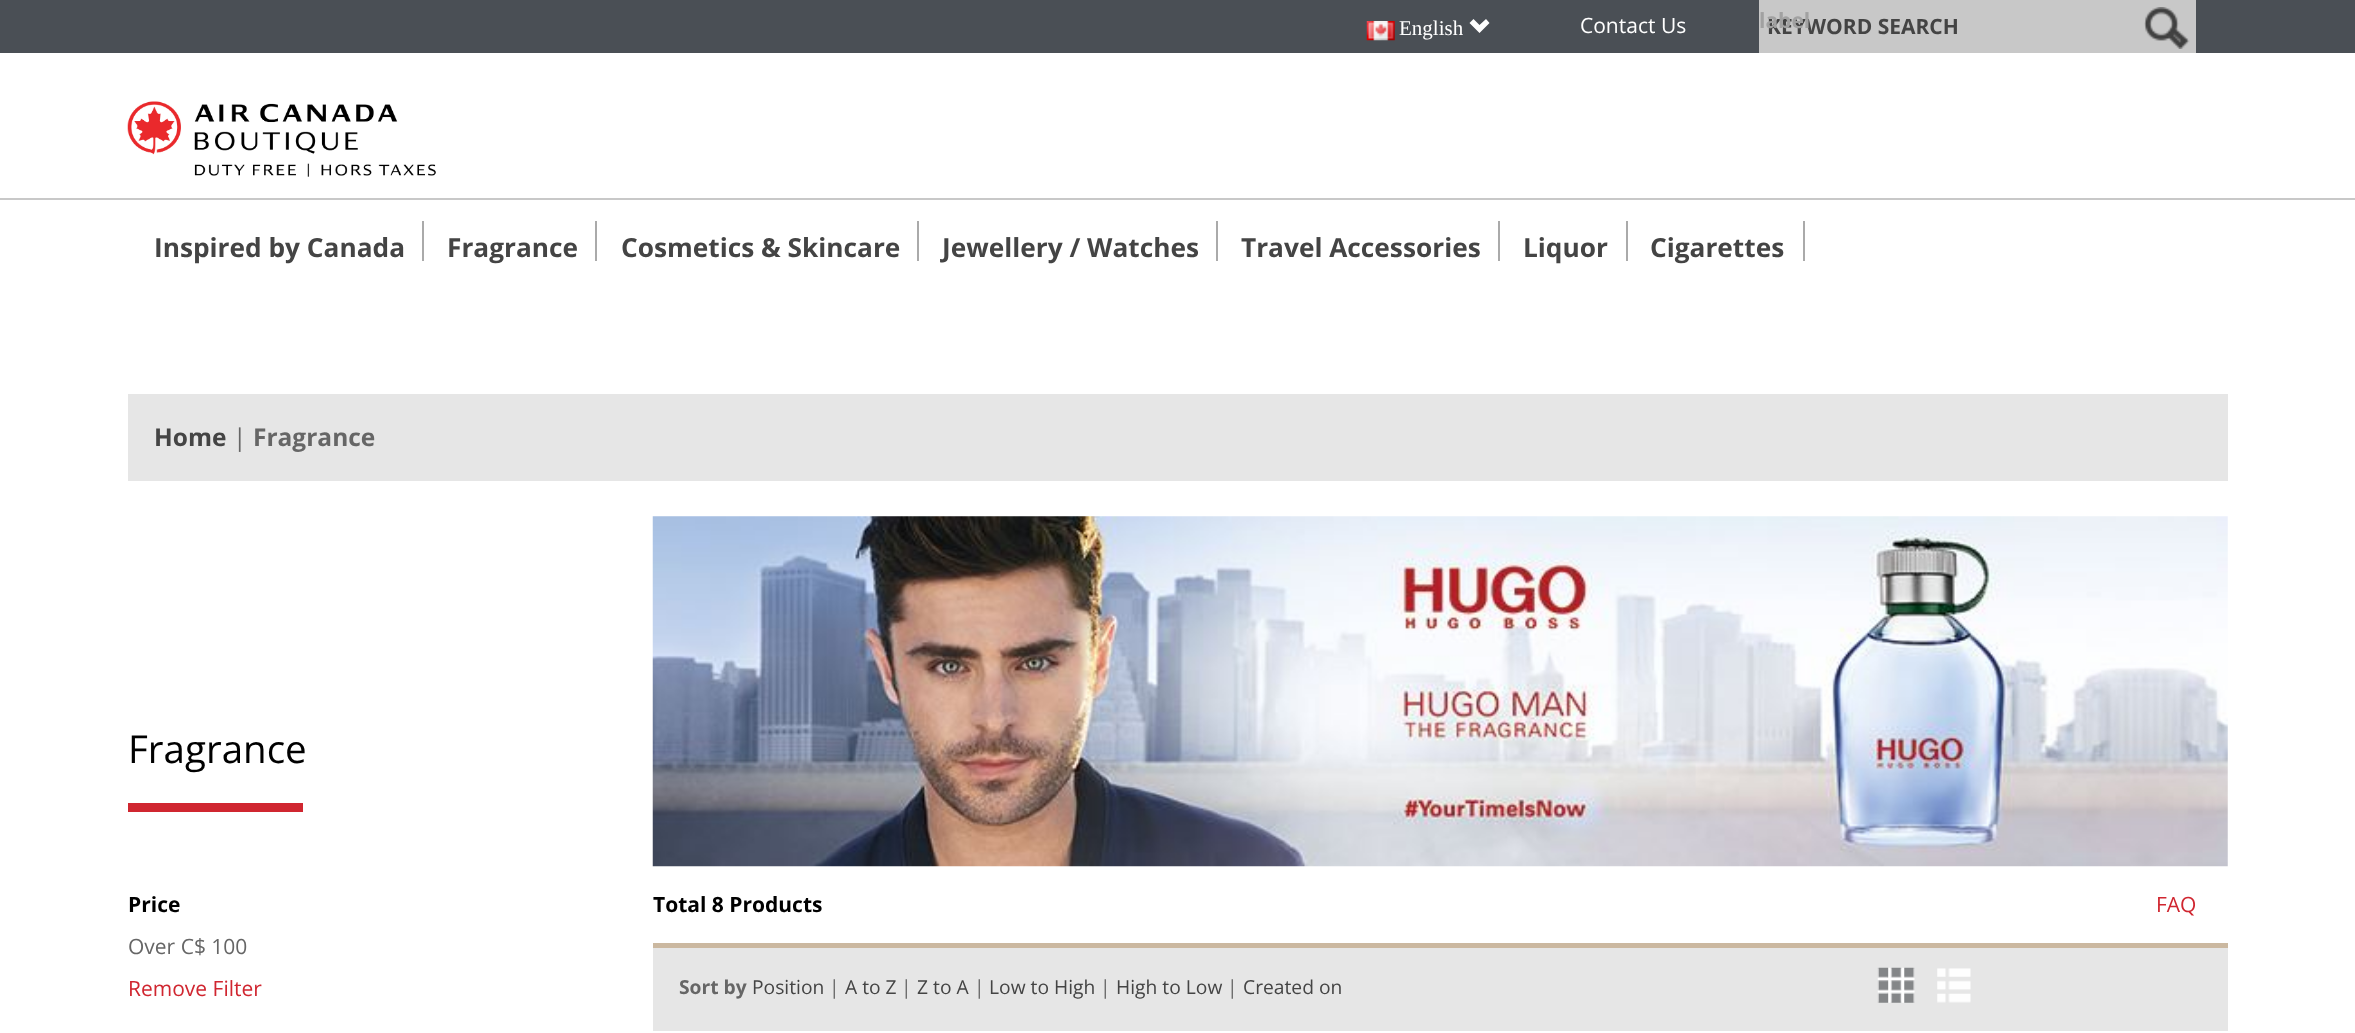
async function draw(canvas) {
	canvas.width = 2355;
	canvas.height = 1033;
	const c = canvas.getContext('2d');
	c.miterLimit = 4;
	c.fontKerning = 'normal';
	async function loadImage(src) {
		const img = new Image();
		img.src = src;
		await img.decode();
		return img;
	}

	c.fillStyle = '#fff';
	c.fillRect(0, 0, 2355, 1033);
	c.fillStyle = '#4a4f55';
	c.fillRect(0, 0, 2355, 53);
	c.drawImage(await loadImage('img1.png'), 1366, 21, 29, 20);
	c.font = '21px Liberation Serif';
	c.fillStyle = '#fff';
	c.fillText('English', 1399, 35);
	c.beginPath();
	c.moveTo(1469.5, 23);
	c.lineTo(1479.5, 33);
	c.lineTo(1489.5, 23);
	c.lineTo(1486, 19);
	c.lineTo(1479.5, 25);
	c.lineTo(1473.5, 19);
	c.closePath();
	c.fill();
	c.font = '21px Open Sans';
	c.fillText('Contact Us', 1580, 33);
	c.fillStyle = '#c8c8c8';
	c.fillRect(1759, 0, 437, 53);
	c.font = 'bold 21px Open Sans';
	c.fillStyle = '#444';
	c.fillText('KEYWORD SEARCH', 1767, 34);
	c.fillStyle = '#a1a1a1';
	c.fillText('label', 1759, 28);
	c.drawImage(await loadImage('img2.png'), 2144, 7, 46, 42);
	c.drawImage(await loadImage('img3.png'), 127, 101, 309, 76);
	c.fillStyle = '#c8c8c8';
	c.fillRect(0, 198, 2355, 2);
	c.fillStyle = '#aaa';
	c.fillRect(422, 221, 2, 40);
	c.font = 'bold 26.25px Open Sans';
	c.fillStyle = '#444';
	c.fillText('Inspired by Canada', 154, 257);
	c.fillStyle = '#aaa';
	c.fillRect(595, 221, 2, 40);
	c.fillStyle = '#444';
	c.fillText('Fragrance', 447, 257);
	c.fillStyle = '#aaa';
	c.fillRect(917, 221, 2, 40);
	c.fillStyle = '#444';
	c.fillText('Cosmetics & Skincare', 621, 257);
	c.fillStyle = '#aaa';
	c.fillRect(1216, 221, 2, 40);
	c.fillStyle = '#444';
	c.fillText('Jewellery / Watches', 942, 257);
	c.fillStyle = '#aaa';
	c.fillRect(1498, 221, 2, 40);
	c.fillStyle = '#444';
	c.fillText('Travel Accessories', 1241, 257);
	c.fillStyle = '#aaa';
	c.fillRect(1626, 221, 2, 40);
	c.fillStyle = '#444';
	c.fillText('Liquor', 1523, 257);
	c.fillStyle = '#aaa';
	c.fillRect(1803, 221, 2, 40);
	c.fillStyle = '#444';
	c.fillText('Cigarettes', 1650, 257);
	c.fillStyle = '#e6e6e6';
	c.fillRect(128, 394, 2100, 87);
	c.font = 'bold 24.5px Open Sans';
	c.fillStyle = '#444';
	c.fillText('Home', 154, 446);
	c.font = '24.5px Open Sans';
	c.fillStyle = '#666';
	c.fillText('|', 233, 446);
	c.font = 'bold 24.5px Open Sans';
	c.fillText('Fragrance', 253, 446);
	c.font = '38.5px Open Sans';
	c.fillStyle = '#000';
	c.fillText('Fragrance', 128, 763);
	c.fillStyle = '#d02630';
	c.fillRect(128, 803, 175, 9);
	c.drawImage(await loadImage('img4.png'), 652, 516, 1576, 351);
	c.font = 'bold 21px Open Sans';
	c.fillStyle = '#000';
	c.fillText('Price', 128, 912);
	c.font = '21px Open Sans';
	c.fillStyle = '#666';
	c.fillText('Over C$ 100', 128, 954);
	c.fillStyle = '#d02630';
	c.fillText('Remove Filter', 128, 996);
	c.font = 'bold 21px Open Sans';
	c.fillStyle = '#000';
	c.fillText('Total 8 Products', 653, 912);
	c.font = '21px Open Sans';
	c.fillStyle = '#d02630';
	c.fillText('FAQ', 2156, 912);
	c.fillStyle = '#e6e6e6';
	c.fillRect(653, 948, 1575, 83);
	c.fillStyle = '#cbb8a0';
	c.fillRect(653, 943, 1575, 5);
	c.font = 'bold 19.25px Open Sans';
	c.fillStyle = '#666';
	c.fillText('Sort by', 679, 994);
	c.font = '19.25px Open Sans';
	c.fillStyle = '#444';
	c.fillText('Position', 752, 994);
	c.fillStyle = '#666';
	c.fillText('|', 829, 994);
	c.fillStyle = '#444';
	c.fillText('A to Z', 845, 994);
	c.fillStyle = '#666';
	c.fillText('|', 901, 994);
	c.fillStyle = '#444';
	c.fillText('Z to A', 917, 994);
	c.fillStyle = '#666';
	c.fillText('|', 974, 994);
	c.fillStyle = '#444';
	c.fillText('Low to High', 989, 994);
	c.fillStyle = '#666';
	c.fillText('|', 1100, 994);
	c.fillStyle = '#444';
	c.fillText('High to Low', 1116, 994);
	c.fillStyle = '#666';
	c.fillText('|', 1227, 994);
	c.fillStyle = '#444';
	c.fillText('Created on', 1243, 994);
	c.drawImage(await loadImage('img5.png'), 1877, 967, 38, 36);
	c.drawImage(await loadImage('img6.png'), 1937, 968, 34, 35);
}

draw(document.querySelector('canvas'));
